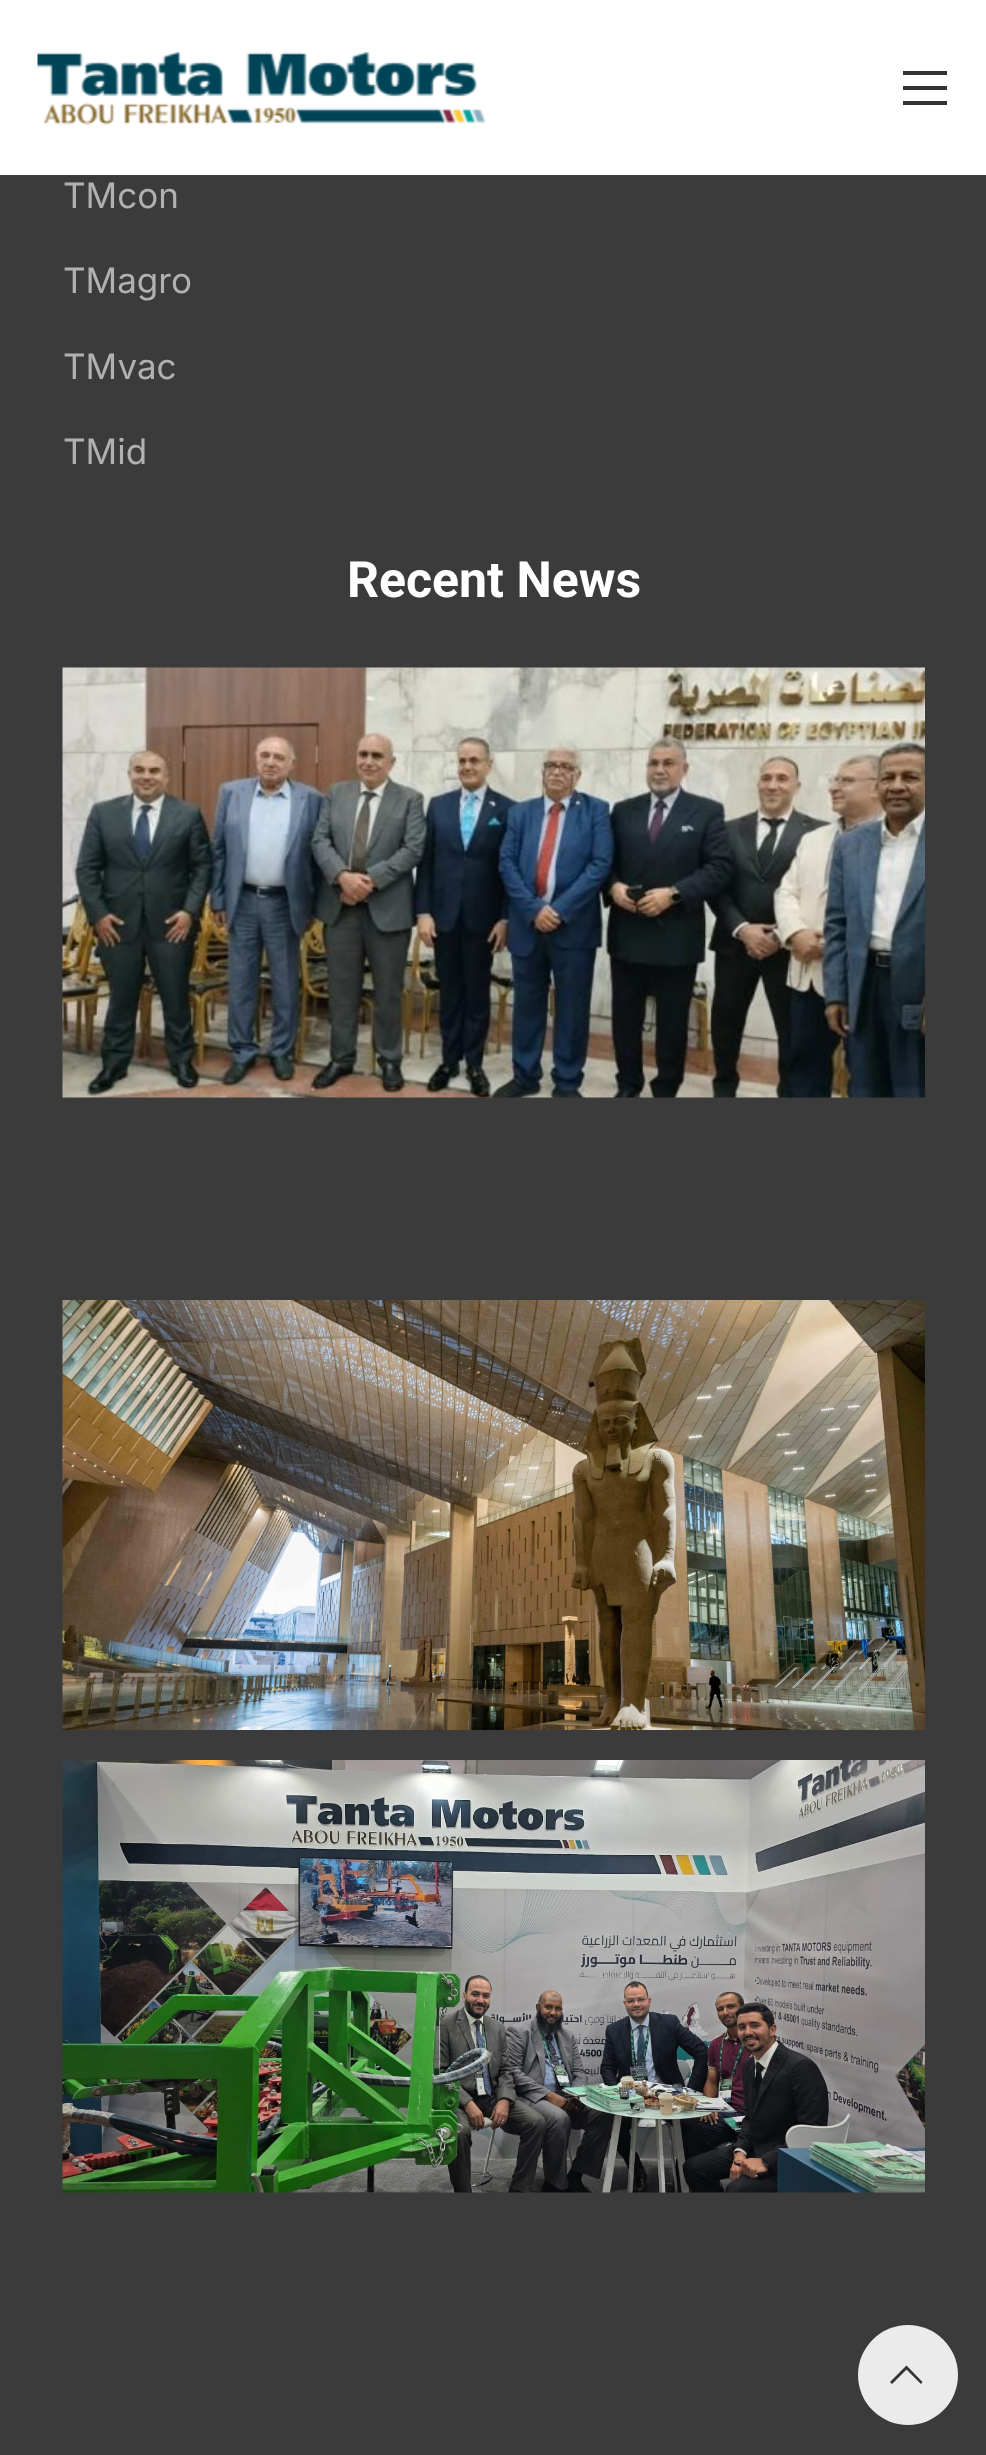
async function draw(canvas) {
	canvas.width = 986;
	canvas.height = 2455;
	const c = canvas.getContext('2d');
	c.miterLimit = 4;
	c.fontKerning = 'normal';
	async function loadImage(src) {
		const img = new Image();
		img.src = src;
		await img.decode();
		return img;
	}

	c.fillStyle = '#3b3b3b';
	c.fillRect(0, 0, 986, 2455);
	c.fillStyle = '#fff';
	c.fillRect(0, 0, 986, 175);
	c.drawImage(await loadImage('img1.png'), 37, 52, 449, 73);
	c.fillStyle = '#333';
	c.beginPath();
	c.moveTo(903, 75);
	c.lineTo(947, 75);
	c.lineTo(947, 71);
	c.lineTo(903, 71);
	c.closePath();
	c.moveTo(903, 90);
	c.lineTo(947, 90);
	c.lineTo(947, 86);
	c.lineTo(903, 86);
	c.closePath();
	c.moveTo(903, 105);
	c.lineTo(947, 105);
	c.lineTo(947, 101);
	c.lineTo(903, 101);
	c.closePath();
	c.fill();
	c.font = '35px Inter';
	c.fillStyle = '#b1b1b1';
	for (const [text, x, y] of [
		['TMcon', 63, 208],
		['TMagro', 63, 293],
		['TMvac', 63, 379],
		['TMid', 63, 464],
	]) {
		c.fillText(text, x, y);
	}
	c.font = 'bold 50px Roboto';
	c.fillStyle = '#fff';
	c.fillText('Recent News', 347, 597);
	c.drawImage(await loadImage('img2.png'), 62, 667, 863, 431);
	c.drawImage(await loadImage('img3.png'), 62, 1300, 863, 430);
	c.drawImage(await loadImage('img4.png'), 62, 1760, 863, 433);
	c.fillStyle = '#ffffffe6';
	c.beginPath();
	c.arc(908, 2375, 50, 0, 2 * Math.PI);
	c.fill();
	c.fillStyle = '#333';
	c.beginPath();
	c.moveTo(921, 2384);
	c.lineTo(922.5, 2382);
	c.lineTo(906.5, 2365.5);
	c.lineTo(890, 2382);
	c.lineTo(892, 2384);
	c.lineTo(906.5, 2369.5);
	c.closePath();
	c.fill();
}

draw(document.querySelector('canvas'));
